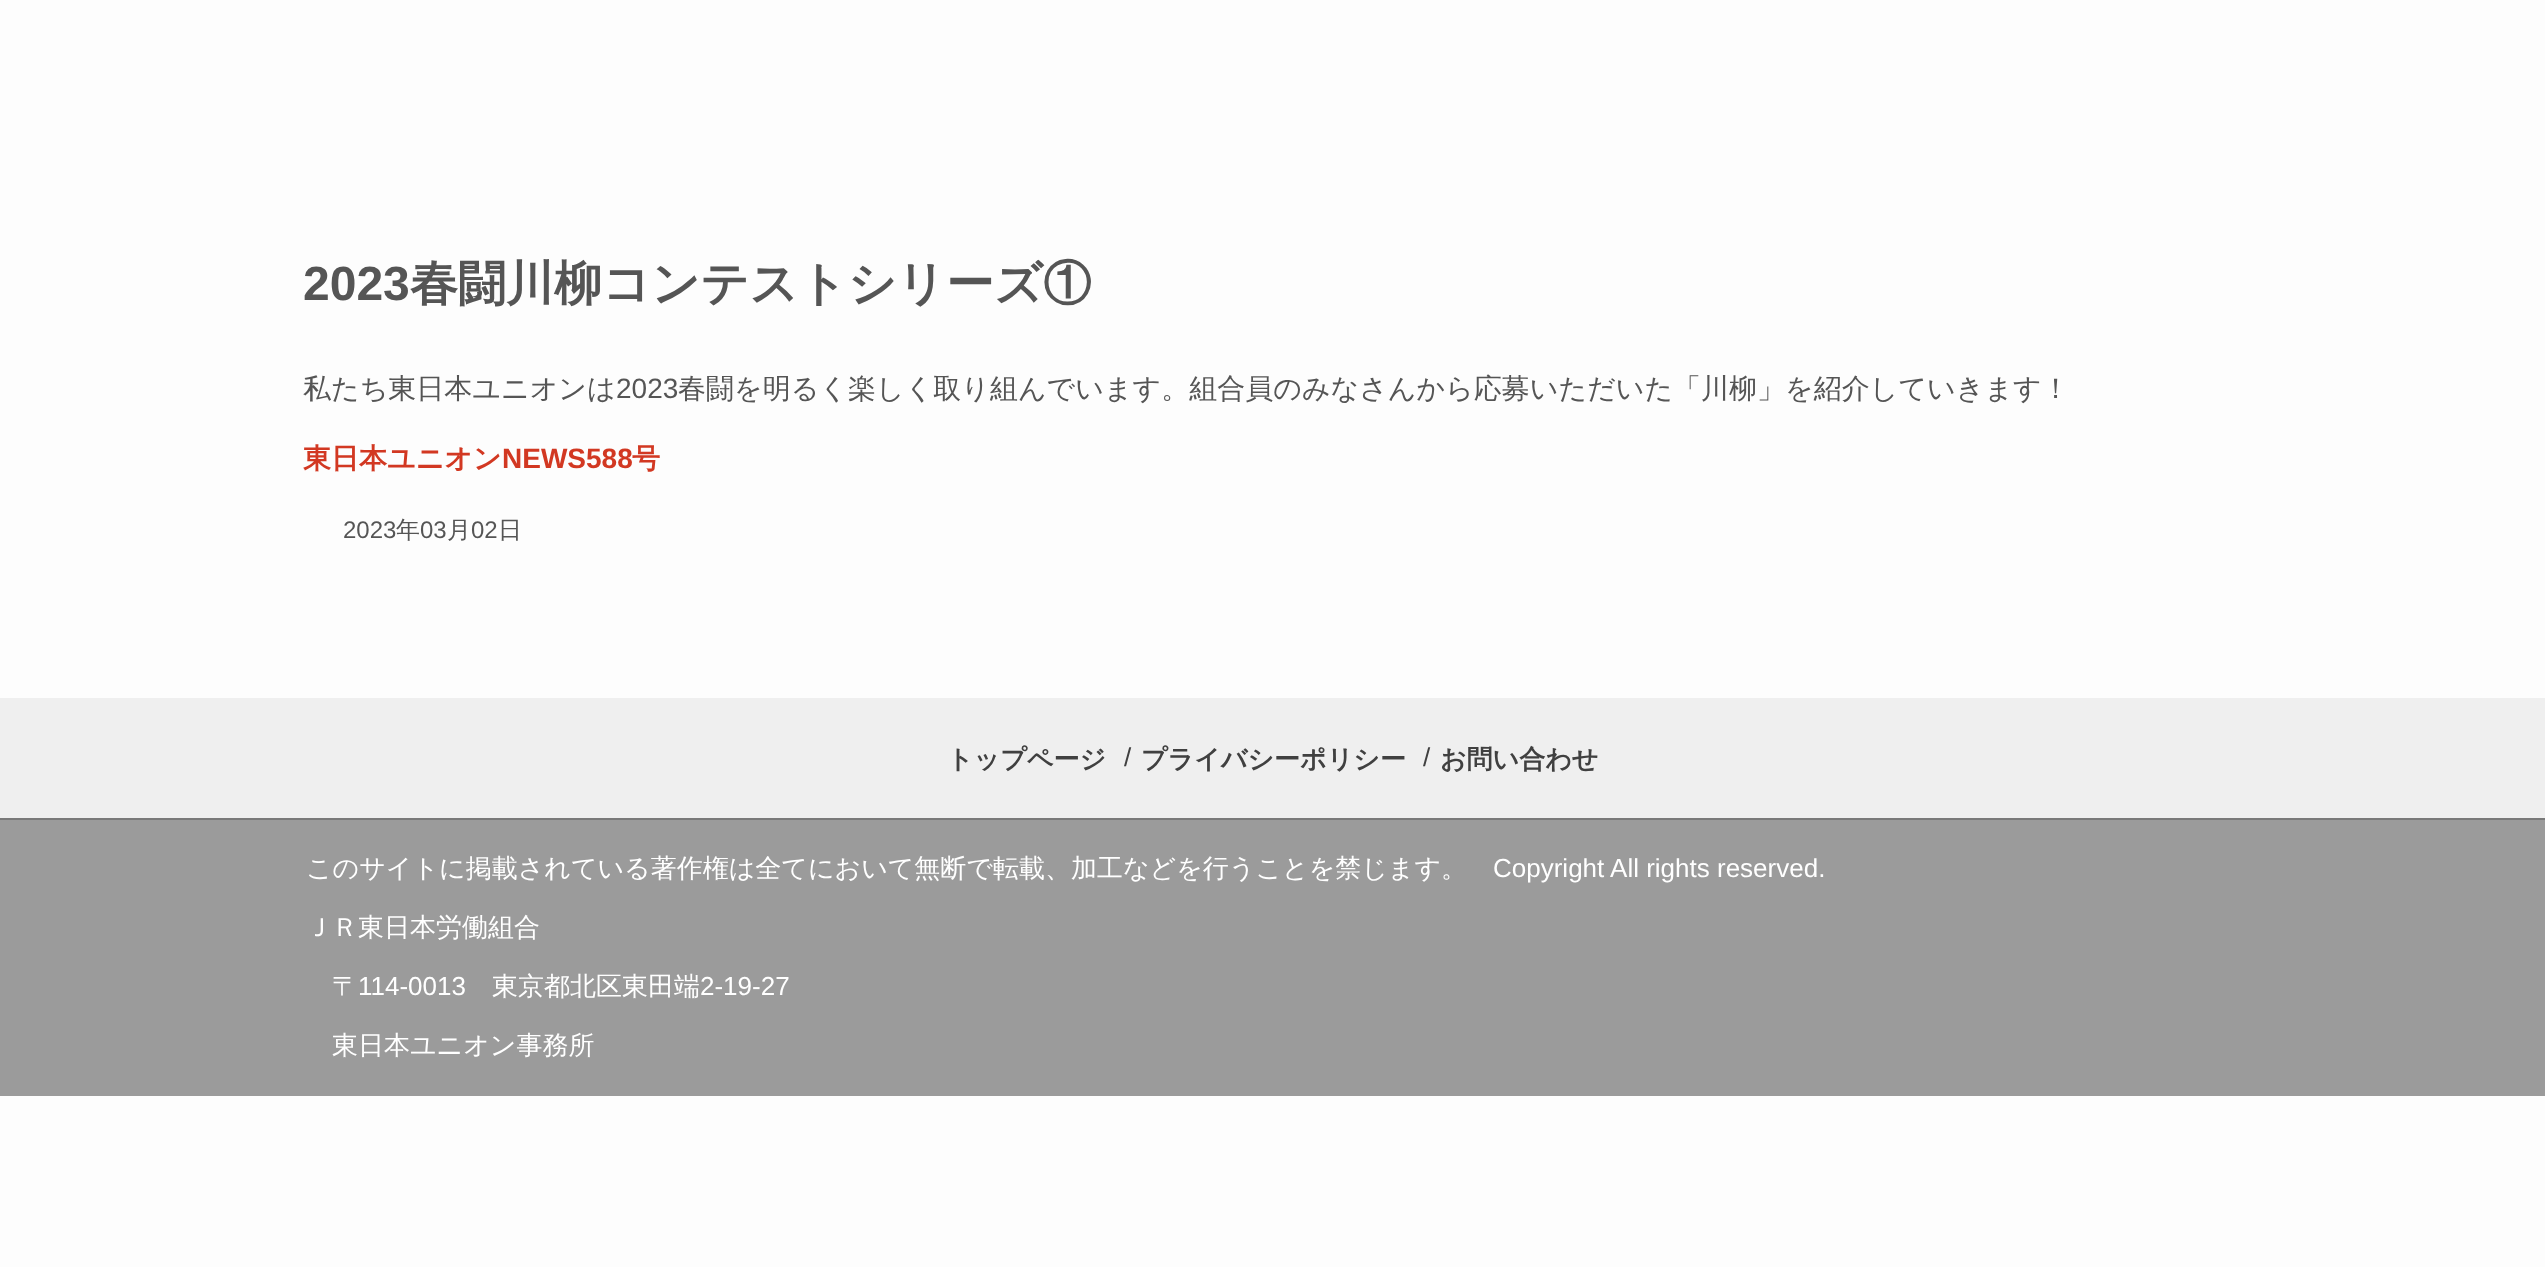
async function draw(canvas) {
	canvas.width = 2545;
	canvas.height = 1267;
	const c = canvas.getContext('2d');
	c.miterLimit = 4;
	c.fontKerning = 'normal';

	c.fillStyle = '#fdfdfd';
	c.fillRect(0, 0, 2545, 1267);
	c.font = 'bold 48px Liberation Sans';
	c.fillStyle = '#555';
	c.fillText('2023', 303, 300);
	c.font = 'bold 48px WenQuanYi Zen Hei';
	c.fillText('春闘川柳コンテストシリーズ①', 410, 300);
	c.font = '500 28px WenQuanYi Zen Hei';
	c.fillText('私たち東日本ユニオンは', 303, 398);
	c.font = '28px Liberation Sans';
	c.fillText('2023', 616, 398);
	c.font = '500 28px WenQuanYi Zen Hei';
	c.fillText('春闘を明るく楽しく取り組んでいます。組合員のみなさんから応募いただいた「川柳」を紹介していきます！', 678, 398);
	c.font = 'bold 28px WenQuanYi Zen Hei';
	c.fillStyle = '#d23822';
	c.fillText('東日本ユニオン', 303, 468);
	c.font = 'bold 28px Liberation Sans';
	c.fillText('NEWS588', 502, 468);
	c.font = 'bold 28px WenQuanYi Zen Hei';
	c.fillText('号', 632, 468);
	c.font = '24px Liberation Sans';
	c.fillStyle = '#555';
	c.fillText('2023', 343, 538);
	c.font = '500 24px WenQuanYi Zen Hei';
	c.fillText('年', 396, 538);
	c.font = '24px Liberation Sans';
	c.fillText('03', 420, 538);
	c.font = '500 24px WenQuanYi Zen Hei';
	c.fillText('月', 447, 538);
	c.font = '24px Liberation Sans';
	c.fillText('02', 471, 538);
	c.font = '500 24px WenQuanYi Zen Hei';
	c.fillText('日', 498, 538);
	c.fillStyle = '#efefef';
	c.fillRect(0, 698, 2545, 120);
	c.font = 'bold 26px WenQuanYi Zen Hei';
	c.fillStyle = '#404040';
	c.fillText('トップページ', 947, 768);
	c.font = '26px Liberation Sans';
	c.fillText('/', 1124, 766);
	c.font = 'bold 26px WenQuanYi Zen Hei';
	c.fillText('プライバシーポリシー', 1141, 768);
	c.font = '26px Liberation Sans';
	c.fillText('/', 1423, 766);
	c.font = 'bold 26px WenQuanYi Zen Hei';
	c.fillText('お問い合わせ', 1440, 768);
	c.fillStyle = '#9b9b9b';
	c.fillRect(0, 820, 2545, 276);
	c.fillStyle = '#797979';
	c.fillRect(0, 818, 2545, 2);
	c.font = '500 26px WenQuanYi Zen Hei';
	c.fillStyle = '#fff';
	c.fillText('このサイトに掲載されている著作権は全てにおいて無断で転載、加工などを行うことを禁じます。', 306, 877);
	c.font = '26px Liberation Sans';
	c.fillText('Copyright All rights reserved.', 1493, 877);
	c.font = '500 26px WenQuanYi Zen Hei';
	c.fillText('ＪＲ東日本労働組合', 306, 936);
	c.fillText('〒', 332, 995);
	c.font = '26px Liberation Sans';
	c.fillText('114-0013', 358, 995);
	c.font = '500 26px WenQuanYi Zen Hei';
	c.fillText('東京都北区東田端', 492, 995);
	c.font = '26px Liberation Sans';
	c.fillText('2-19-27', 700, 995);
	c.font = '500 26px WenQuanYi Zen Hei';
	c.fillText('東日本ユニオン事務所', 332, 1054);
}

draw(document.querySelector('canvas'));
